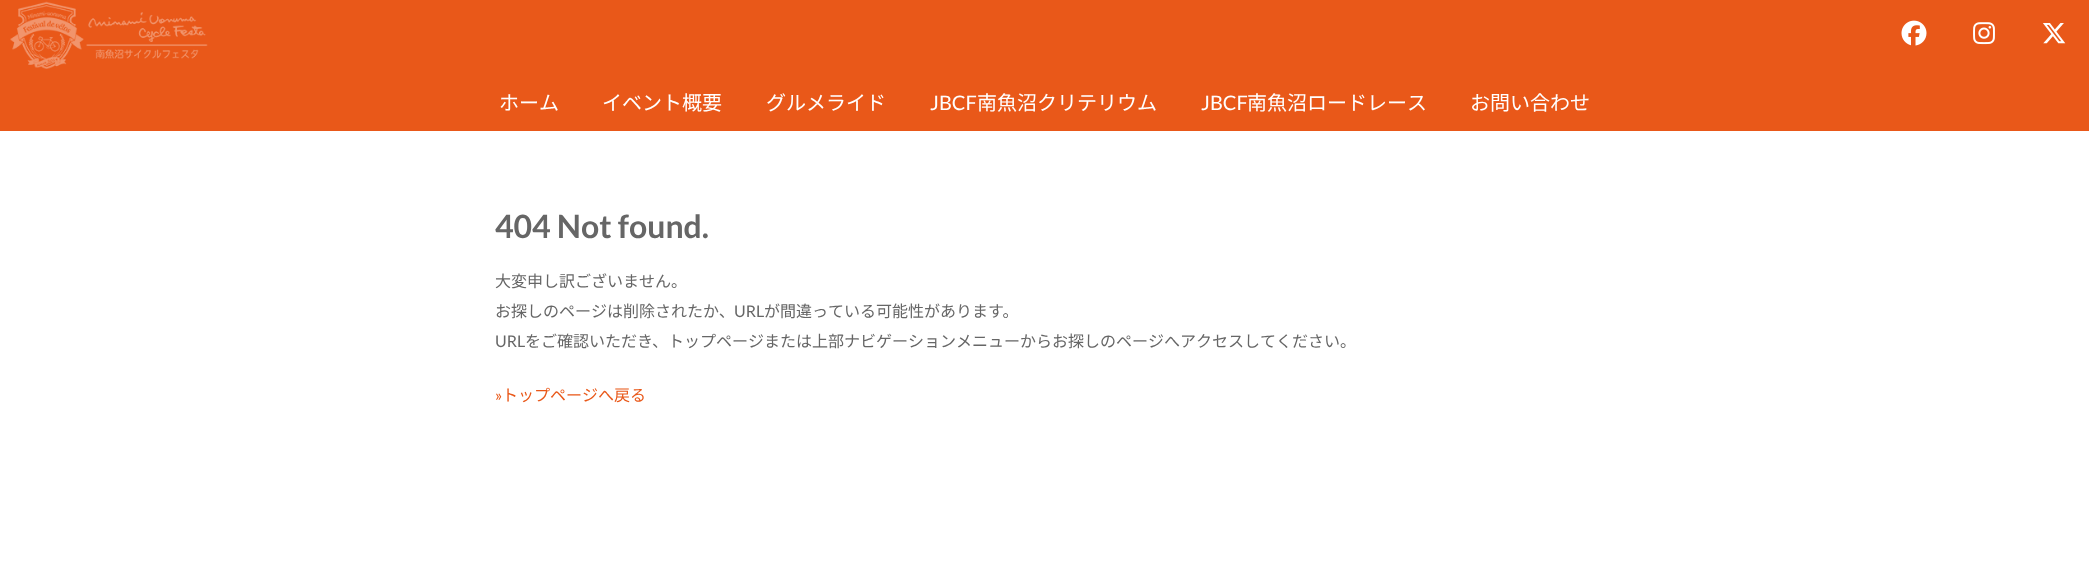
async function draw(canvas) {
	canvas.width = 2089;
	canvas.height = 576;
	const c = canvas.getContext('2d');
	c.miterLimit = 4;
	c.fontKerning = 'normal';
	async function loadImage(src) {
		const img = new Image();
		img.src = src;
		await img.decode();
		return img;
	}

	c.fillStyle = '#fff';
	c.fillRect(0, 0, 2089, 576);
	c.fillStyle = '#e95819';
	c.fillRect(0, 0, 2089, 131);
	c.drawImage(await loadImage('img1.png'), 10, 1, 198, 68);
	c.drawImage(await loadImage('img2.png'), 1901, 20, 26, 26);
	c.drawImage(await loadImage('img3.png'), 1973, 22, 22, 23);
	c.drawImage(await loadImage('img4.png'), 2043, 23, 23, 21);
	c.font = '20px Noto Sans JP';
	c.fillStyle = '#fff';
	for (const [text, x, y] of [
		['ホーム', 499, 110],
		['イベント概要', 602, 110],
		['グルメライド', 766, 110],
	]) {
		c.fillText(text, x, y);
	}
	c.font = '20px Lato';
	c.fillText('JBCF', 930, 110);
	c.font = '20px Noto Sans JP';
	c.fillText('南魚沼クリテリウム', 977, 110);
	c.font = '20px Lato';
	c.fillText('JBCF', 1201, 110);
	c.font = '20px Noto Sans JP';
	c.fillText('南魚沼ロードレース', 1247, 110);
	c.fillText('お問い合わせ', 1470, 110);
	c.font = 'bold 32px Lato';
	c.fillStyle = '#666';
	c.fillText('404 Not found.', 495, 238);
	c.font = '16px Noto Sans JP';
	c.fillText('大変申し訳ございません。', 495, 287);
	c.fillText('お探しのページは削除されたか、', 495, 317);
	c.font = '16px Lato';
	c.fillText('URL', 734, 317);
	c.font = '16px Noto Sans JP';
	c.fillText('が間違っている可能性があります。', 764, 317);
	c.font = '16px Lato';
	c.fillText('URL', 495, 347);
	c.font = '16px Noto Sans JP';
	c.fillText('をご確認いただき、トップページまたは上部ナビゲーションメニューからお探しのページへアクセスしてください。', 525, 347);
	c.font = '16px Lato';
	c.fillStyle = '#e95819';
	c.fillText('»', 495, 401);
	c.font = '16px Noto Sans JP';
	c.fillText('トップページへ戻る', 502, 401);
}

draw(document.querySelector('canvas'));
